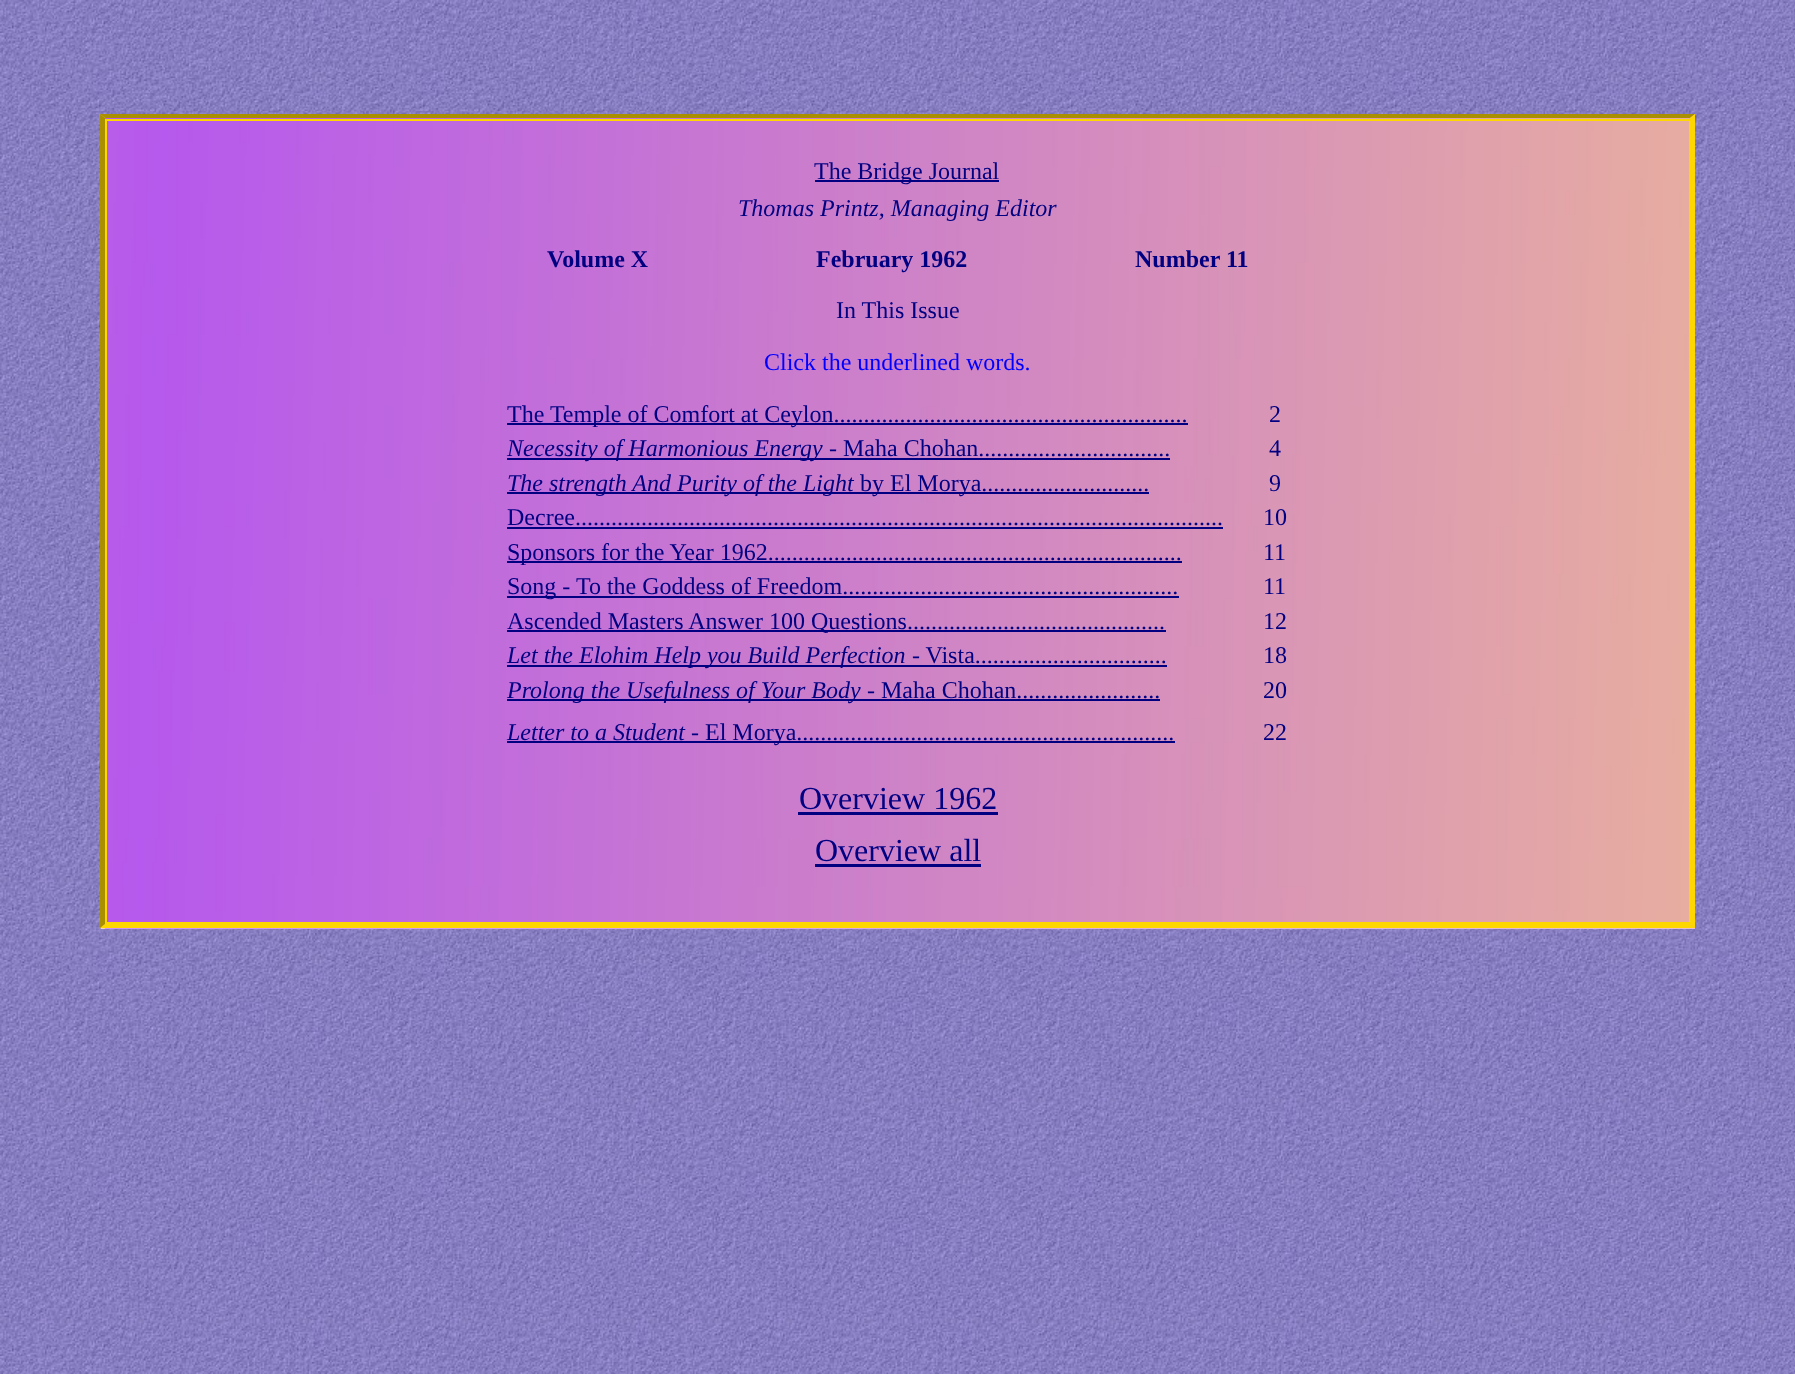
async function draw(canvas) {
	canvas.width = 1795;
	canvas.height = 1374;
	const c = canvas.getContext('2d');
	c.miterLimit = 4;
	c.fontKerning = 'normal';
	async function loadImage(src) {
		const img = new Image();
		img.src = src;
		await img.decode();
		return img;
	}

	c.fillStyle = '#fff';
	c.fillRect(0, 0, 1795, 1374);
	c.drawImage(await loadImage('img1.png'), 0, 0, 1795, 1374);
	c.fillStyle = '#e8cefd';
	c.fillRect(101, 928, 1594, 1);
	c.drawImage(await loadImage('img2.png'), 100, 114, 1595, 815);
	c.fillStyle = '#aa8f00';
	c.beginPath();
	c.moveTo(100, 114);
	c.lineTo(1695, 114);
	c.lineTo(1690, 118);
	c.lineTo(105, 118);
	c.closePath();
	c.fill();
	c.fillStyle = '#ffd700';
	c.beginPath();
	c.moveTo(1695, 114);
	c.lineTo(1695, 928);
	c.lineTo(1690, 924);
	c.lineTo(1690, 118);
	c.closePath();
	c.fill();
	c.beginPath();
	c.moveTo(1695, 928);
	c.lineTo(100, 928);
	c.lineTo(105, 924);
	c.lineTo(1690, 924);
	c.closePath();
	c.fill();
	c.fillStyle = '#aa8f00';
	c.beginPath();
	c.moveTo(100, 928);
	c.lineTo(100, 114);
	c.lineTo(105, 118);
	c.lineTo(105, 924);
	c.closePath();
	c.fill();
	c.strokeStyle = '#ffd700';
	c.lineWidth = 2;
	c.strokeRect(106, 120, 1584, 803);
	c.fillStyle = '#000080';
	c.fillRect(815, 180, 184, 2);
	c.font = '24px Liberation Serif';
	c.fillText('The Bridge Journal', 814, 179);
	c.font = 'italic 24px Liberation Serif';
	c.fillText('Thomas Printz, Managing Editor', 738, 216);
	c.font = 'bold 24px Liberation Serif';
	for (const [text, x, y] of [
		['Volume X', 547, 267],
		['February 1962', 816, 267],
		['Number 11', 1135, 267],
	]) {
		c.fillText(text, x, y);
	}
	c.font = '24px Liberation Serif';
	c.fillText('In This Issue', 836, 318);
	c.fillStyle = '#00f';
	c.fillText('Click the underlined words.', 764, 370);
	c.fillStyle = '#000080';
	c.fillRect(507, 423, 681, 2);
	c.fillText('The Temple of Comfort at Ceylon...........................................................', 507, 422);
	c.fillText('2', 1269, 422);
	c.fillRect(507, 458, 663, 2);
	c.font = 'italic 24px Liberation Serif';
	c.fillText('Necessity of Harmonious Energy', 507, 456);
	c.font = '24px Liberation Serif';
	c.fillText('- Maha Chohan................................', 829, 456);
	c.fillText('4', 1269, 456);
	c.fillRect(507, 492, 347, 2);
	c.font = 'italic 24px Liberation Serif';
	c.fillText('The strength And Purity of the Light', 507, 491);
	c.fillRect(854, 492, 295, 2);
	c.font = '24px Liberation Serif';
	for (const [text, x, y] of [
		['by El Morya............................', 860, 491],
		['9', 1269, 491],
		['Decree............................................................................................................', 507, 525],
	]) {
		c.fillText(text, x, y);
	}
	c.fillRect(507, 527, 716, 2);
	c.fillText('10', 1263, 525);
	c.fillRect(507, 561, 675, 2);
	c.fillText('Sponsors for the Year 1962.....................................................................', 507, 560);
	c.fillText('11', 1263, 560);
	c.fillRect(507, 596, 672, 2);
	c.fillText('Song - To the Goddess of Freedom........................................................', 507, 594);
	c.fillText('11', 1263, 594);
	c.fillRect(507, 630, 659, 2);
	c.fillText('Ascended Masters Answer 100 Questions...........................................', 507, 629);
	c.fillText('12', 1263, 629);
	c.fillRect(507, 665, 660, 2);
	c.font = 'italic 24px Liberation Serif';
	c.fillText('Let the Elohim Help you Build Perfection', 507, 663);
	c.font = '24px Liberation Serif';
	c.fillText('- Vista................................', 912, 663);
	c.fillText('18', 1263, 663);
	c.fillRect(507, 699, 653, 2);
	c.font = 'italic 24px Liberation Serif';
	c.fillText('Prolong the Usefulness of Your Body', 507, 698);
	c.font = '24px Liberation Serif';
	c.fillText('- Maha Chohan........................', 867, 698);
	c.fillText('20', 1263, 698);
	c.font = 'italic 24px Liberation Serif';
	c.fillText('Letter to a Student', 507, 740);
	c.fillRect(507, 741, 668, 2);
	c.font = '24px Liberation Serif';
	c.fillText('- El Morya...............................................................', 691, 740);
	c.fillText('22', 1263, 740);
	c.font = '32px Liberation Serif';
	c.fillText('Overview 1962', 799, 809);
	c.fillRect(798, 812, 200, 3);
	c.fillText('Overview all', 815, 861);
	c.fillRect(815, 864, 166, 3);
}

draw(document.querySelector('canvas'));
